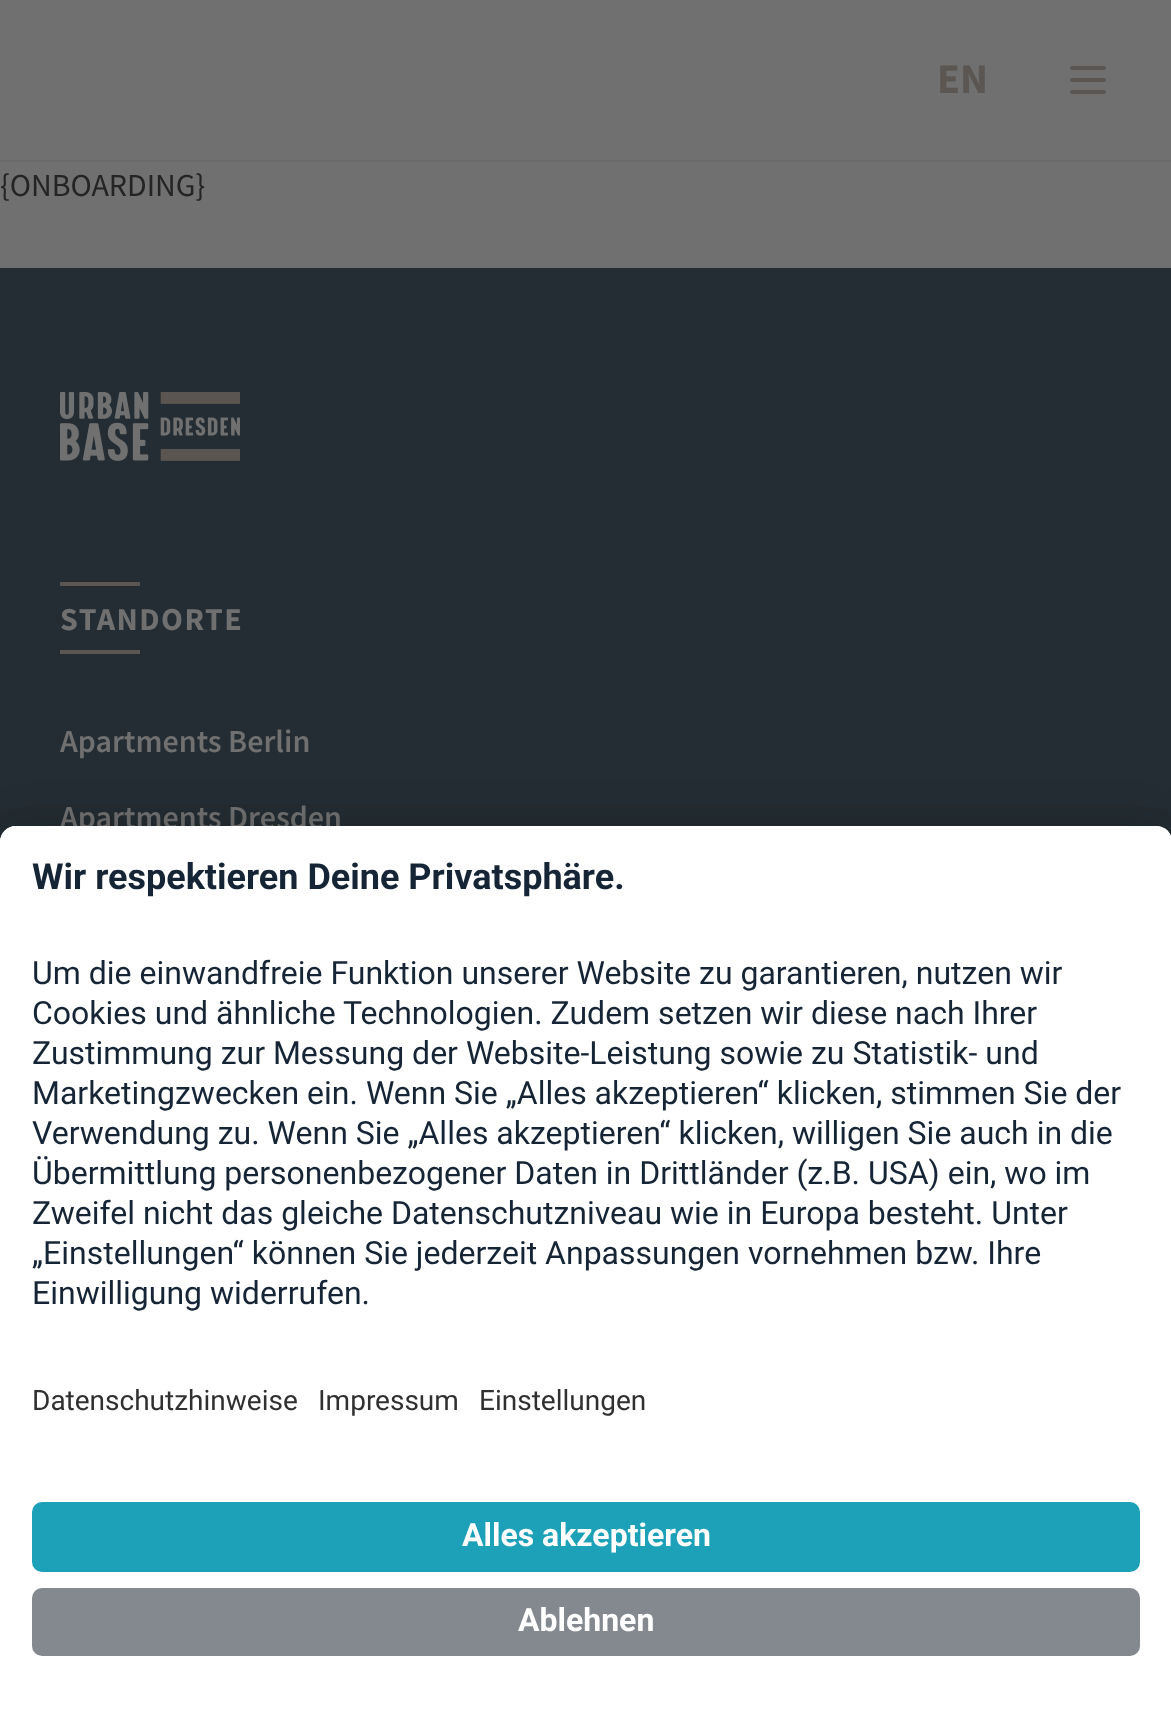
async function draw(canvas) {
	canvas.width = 1171;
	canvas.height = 1712;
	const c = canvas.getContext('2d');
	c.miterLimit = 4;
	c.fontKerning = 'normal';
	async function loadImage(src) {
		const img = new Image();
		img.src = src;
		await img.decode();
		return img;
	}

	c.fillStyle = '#707070';
	c.fillRect(0, 0, 1171, 1712);
	c.fillStyle = '#6b6b6b';
	c.fillRect(0, 160, 1171, 2);
	c.font = 'bold 42px Source Sans Pro';
	c.fillStyle = '#5b5651';
	c.fillText('EN', 937, 93);
	c.beginPath();
	c.moveTo(1072, 68);
	c.lineTo(1104, 68);
	c.moveTo(1072, 80);
	c.lineTo(1104, 80);
	c.moveTo(1072, 92);
	c.lineTo(1104, 92);
	c.strokeStyle = '#5b5651';
	c.lineWidth = 4;
	c.lineCap = 'round';
	c.lineJoin = 'round';
	c.stroke();
	c.font = '32px Source Sans Pro';
	c.fillStyle = '#242424';
	c.fillText('{ONBOARDING}', 0, 196);
	c.fillStyle = '#242d33';
	c.fillRect(0, 268, 1171, 574);
	c.drawImage(await loadImage('img1.png'), 60, 392, 180, 69);
	c.fillStyle = '#5b5651';
	c.fillRect(60, 582, 80, 4);
	c.letterSpacing = '1.5px';
	c.font = 'bold 32px Source Sans Pro';
	c.fillStyle = '#707070';
	c.fillText('STANDORTE', 60, 630);
	c.fillStyle = '#5b5651';
	c.fillRect(60, 650, 80, 4);
	c.letterSpacing = '0px';
	c.font = '600 32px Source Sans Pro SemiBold';
	c.fillStyle = '#707070';
	c.fillText('Apartments Berlin', 60, 752);
	c.fillText('Apartments Dresden', 60, 828);
	c.fillStyle = '#0000004d';
	c.filter = 'blur(28px)';
	c.beginPath();
	c.roundRect(0, 866, 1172, 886, 16);
	c.fill();
	c.filter = 'none';
	c.fillStyle = '#00000038';
	c.filter = 'blur(26px)';
	c.beginPath();
	c.roundRect(0, 836, 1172, 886, 16);
	c.fill();
	c.filter = 'none';
	c.fillStyle = '#fff';
	c.beginPath();
	c.moveTo(16, 826);
	c.lineTo(1156, 826);
	c.bezierCurveTo(1165, 826, 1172, 833, 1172, 842);
	c.lineTo(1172, 1712);
	c.lineTo(0, 1712);
	c.lineTo(0, 842);
	c.bezierCurveTo(0, 833, 7, 826, 16, 826);
	c.closePath();
	c.fill();
	c.beginPath();
	c.moveTo(16, 826);
	c.lineTo(1156, 826);
	c.bezierCurveTo(1165, 826, 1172, 833, 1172, 842);
	c.lineTo(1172, 1478);
	c.lineTo(0, 1478);
	c.lineTo(0, 842);
	c.bezierCurveTo(0, 833, 7, 826, 16, 826);
	c.closePath();
	c.fill();
	c.font = 'bold 36px Roboto';
	c.fillStyle = '#162536';
	c.fillText('Wir respektieren Deine Privatsphäre.', 32, 889);
	c.font = '32px Roboto';
	for (const [text, x, y] of [
		['Um die einwandfreie Funktion unserer Website zu garantieren, nutzen wir', 32, 984],
		['Cookies und ähnliche Technologien. Zudem setzen wir diese nach Ihrer', 32, 1024],
		['Zustimmung zur Messung der Website-Leistung sowie zu Statistik- und', 32, 1064],
		['Marketingzwecken ein. Wenn Sie „Alles akzeptieren“ klicken, stimmen Sie der', 32, 1104],
		['Verwendung zu. Wenn Sie „Alles akzeptieren“ klicken, willigen Sie auch in die', 32, 1144],
		['Übermittlung personenbezogener Daten in Drittländer (z.B. USA) ein, wo im', 32, 1184],
		['Zweifel nicht das gleiche Datenschutzniveau wie in Europa besteht. Unter', 32, 1224],
		['„Einstellungen“ können Sie jederzeit Anpassungen vornehmen bzw. Ihre', 32, 1264],
		['Einwilligung widerrufen.', 32, 1304],
	]) {
		c.fillText(text, x, y);
	}
	c.font = '28px Roboto';
	c.fillStyle = '#303030';
	for (const [text, x, y] of [
		['Datenschutzhinweise', 32, 1410],
		['Impressum', 318, 1410],
		['Einstellungen', 479, 1410],
	]) {
		c.fillText(text, x, y);
	}
	c.fillStyle = '#1ca1b8';
	c.beginPath();
	c.roundRect(32, 1502, 1108, 70, 10);
	c.fill();
	c.font = 'bold 32px Roboto';
	c.fillStyle = '#fff';
	c.fillText('Alles akzeptieren', 462, 1546);
	c.fillStyle = '#83898e';
	c.beginPath();
	c.roundRect(32, 1588, 1108, 68, 10);
	c.fill();
	c.fillStyle = '#fff';
	c.fillText('Ablehnen', 518, 1631);
}

draw(document.querySelector('canvas'));
